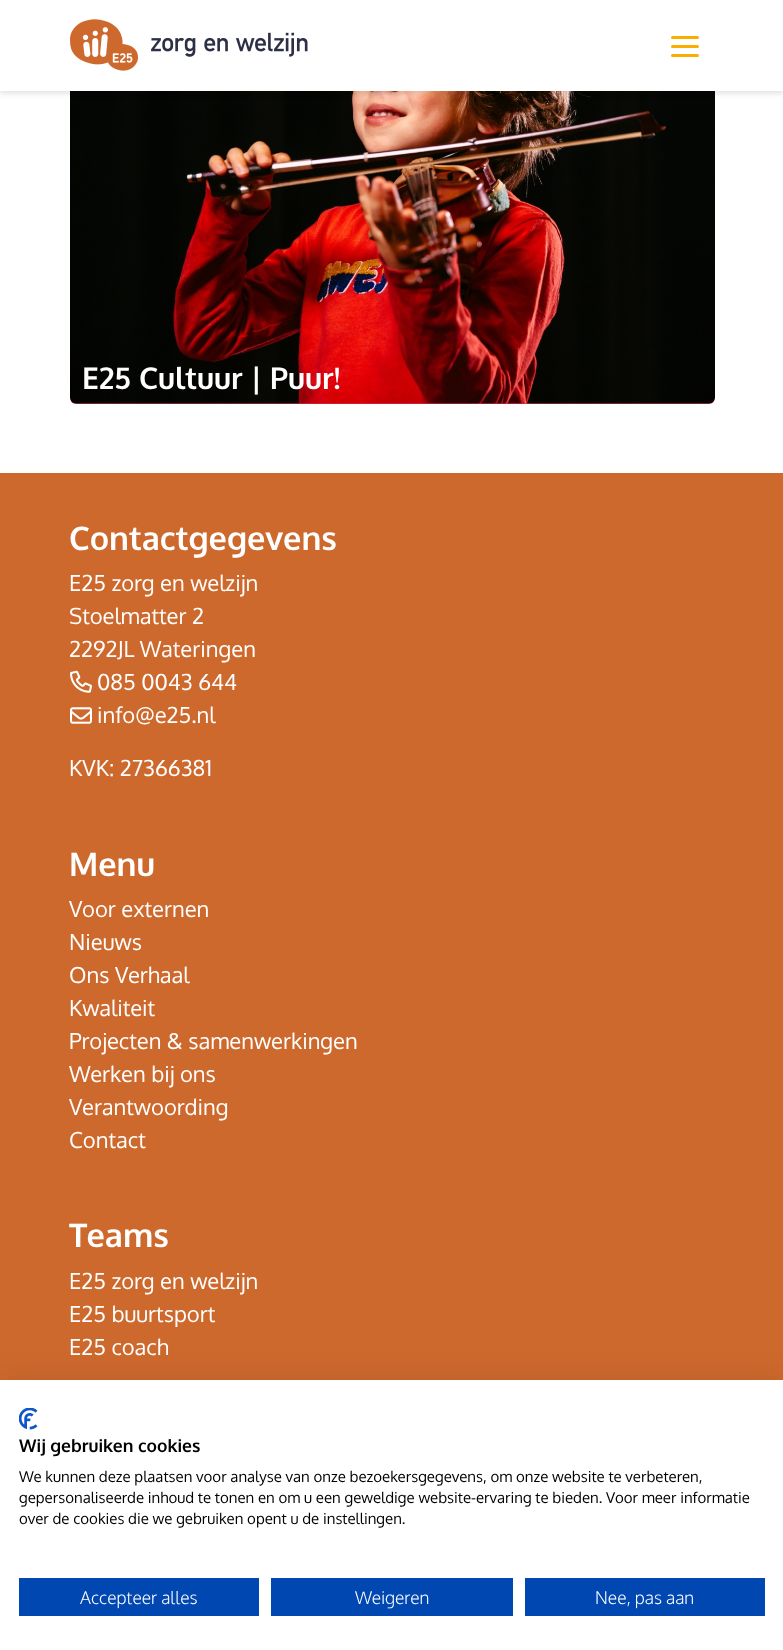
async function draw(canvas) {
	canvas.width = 783;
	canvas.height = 1650;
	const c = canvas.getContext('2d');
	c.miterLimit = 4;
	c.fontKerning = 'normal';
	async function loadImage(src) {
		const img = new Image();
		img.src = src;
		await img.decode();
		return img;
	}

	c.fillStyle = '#fff';
	c.fillRect(0, 0, 783, 1650);
	c.fillStyle = '#d83262';
	c.beginPath();
	c.roundRect(70, -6, 645, 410, 6);
	c.fill();
	c.drawImage(await loadImage('img2.png'), 70, 91, 645, 313);
	c.fillStyle = '#0000001a';
	c.filter = 'blur(2.5px)';
	c.beginPath();
	c.rect(0, 1, 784, 93);
	c.fill();
	c.filter = 'none';
	c.fillStyle = '#fff';
	c.fillRect(0, 0, 783, 91);
	c.drawImage(await loadImage('img1.png'), 70, 19, 238, 52);
	c.fillStyle = '#faaf00';
	c.beginPath();
	c.roundRect(671, 36, 28, 3, 1.5);
	c.fill();
	c.beginPath();
	c.roundRect(671, 45, 28, 3, 1.5);
	c.fill();
	c.beginPath();
	c.roundRect(671, 54, 28, 3, 1.5);
	c.fill();
	c.font = 'bold 30px Oxygen';
	c.fillStyle = '#fff';
	c.fillText('E25 Cultuur | Puur!', 82, 389);
	c.fillStyle = '#ce692d';
	c.fillRect(0, 473, 783, 907);
	c.font = 'bold 32.5px Oxygen';
	c.fillStyle = '#fff';
	c.fillText('Contactgegevens', 69, 550);
	c.font = '22px Oxygen';
	for (const [text, x, y] of [
		['E25 zorg en welzijn', 69, 591],
		['Stoelmatter 2', 69, 624],
		['2292JL Wateringen', 69, 657],
	]) {
		c.fillText(text, x, y);
	}
	c.drawImage(await loadImage('img3.png'), 70, 670, 22, 23);
	c.fillText('085 0043 644', 97, 690);
	c.drawImage(await loadImage('img4.png'), 70, 707, 22, 17);
	c.fillText('info@e25.nl', 97, 723);
	c.fillText('KVK: 27366381', 69, 776);
	c.font = 'bold 32.5px Oxygen';
	c.fillText('Menu', 69, 876);
	c.font = '22px Oxygen';
	for (const [text, x, y] of [
		['Voor externen', 69, 917],
		['Nieuws', 69, 950],
		['Ons Verhaal', 69, 983],
		['Kwaliteit', 69, 1016],
		['Projecten & samenwerkingen', 69, 1049],
		['Werken bij ons', 69, 1082],
		['Verantwoording', 69, 1115],
		['Contact', 69, 1148],
	]) {
		c.fillText(text, x, y);
	}
	c.font = 'bold 32.5px Oxygen';
	c.fillText('Teams', 69, 1247);
	c.font = '22px Oxygen';
	for (const [text, x, y] of [
		['E25 zorg en welzijn', 69, 1289],
		['E25 buurtsport', 69, 1322],
		['E25 coach', 69, 1355],
	]) {
		c.fillText(text, x, y);
	}
	c.fillStyle = '#0000001a';
	c.filter = 'blur(15px)';
	c.beginPath();
	c.rect(0, 1380, 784, 270);
	c.fill();
	c.filter = 'none';
	c.fillStyle = '#fff';
	c.fillRect(0, 1380, 783, 270);
	c.drawImage(await loadImage('img5.png'), 19, 1408, 19, 22);
	c.font = 'bold 17.5px Oxygen';
	c.fillStyle = '#000';
	c.fillText('Wij gebruiken cookies', 19, 1452);
	c.font = '15px Oxygen';
	for (const [text, x, y] of [
		['We kunnen deze plaatsen voor analyse van onze bezoekersgegevens, om onze website te verbeteren,', 19, 1482],
		['gepersonaliseerde inhoud te tonen en om u een geweldige website-ervaring te bieden. Voor meer informatie', 19, 1503],
		['over de cookies die we gebruiken opent u de instellingen.', 19, 1524],
	]) {
		c.fillText(text, x, y);
	}
	c.fillStyle = '#0047b2';
	c.fillRect(19, 1578, 240, 38);
	c.font = '300 17.5px Oxygen';
	c.fillStyle = '#fff';
	c.fillText('Accepteer alles', 80, 1604);
	c.fillStyle = '#0047b2';
	c.fillRect(271, 1578, 242, 38);
	c.fillStyle = '#fff';
	c.fillText('Weigeren', 355, 1604);
	c.fillStyle = '#0047b2';
	c.fillRect(525, 1578, 240, 38);
	c.fillStyle = '#fff';
	c.fillText('Nee, pas aan', 595, 1604);
}

draw(document.querySelector('canvas'));
